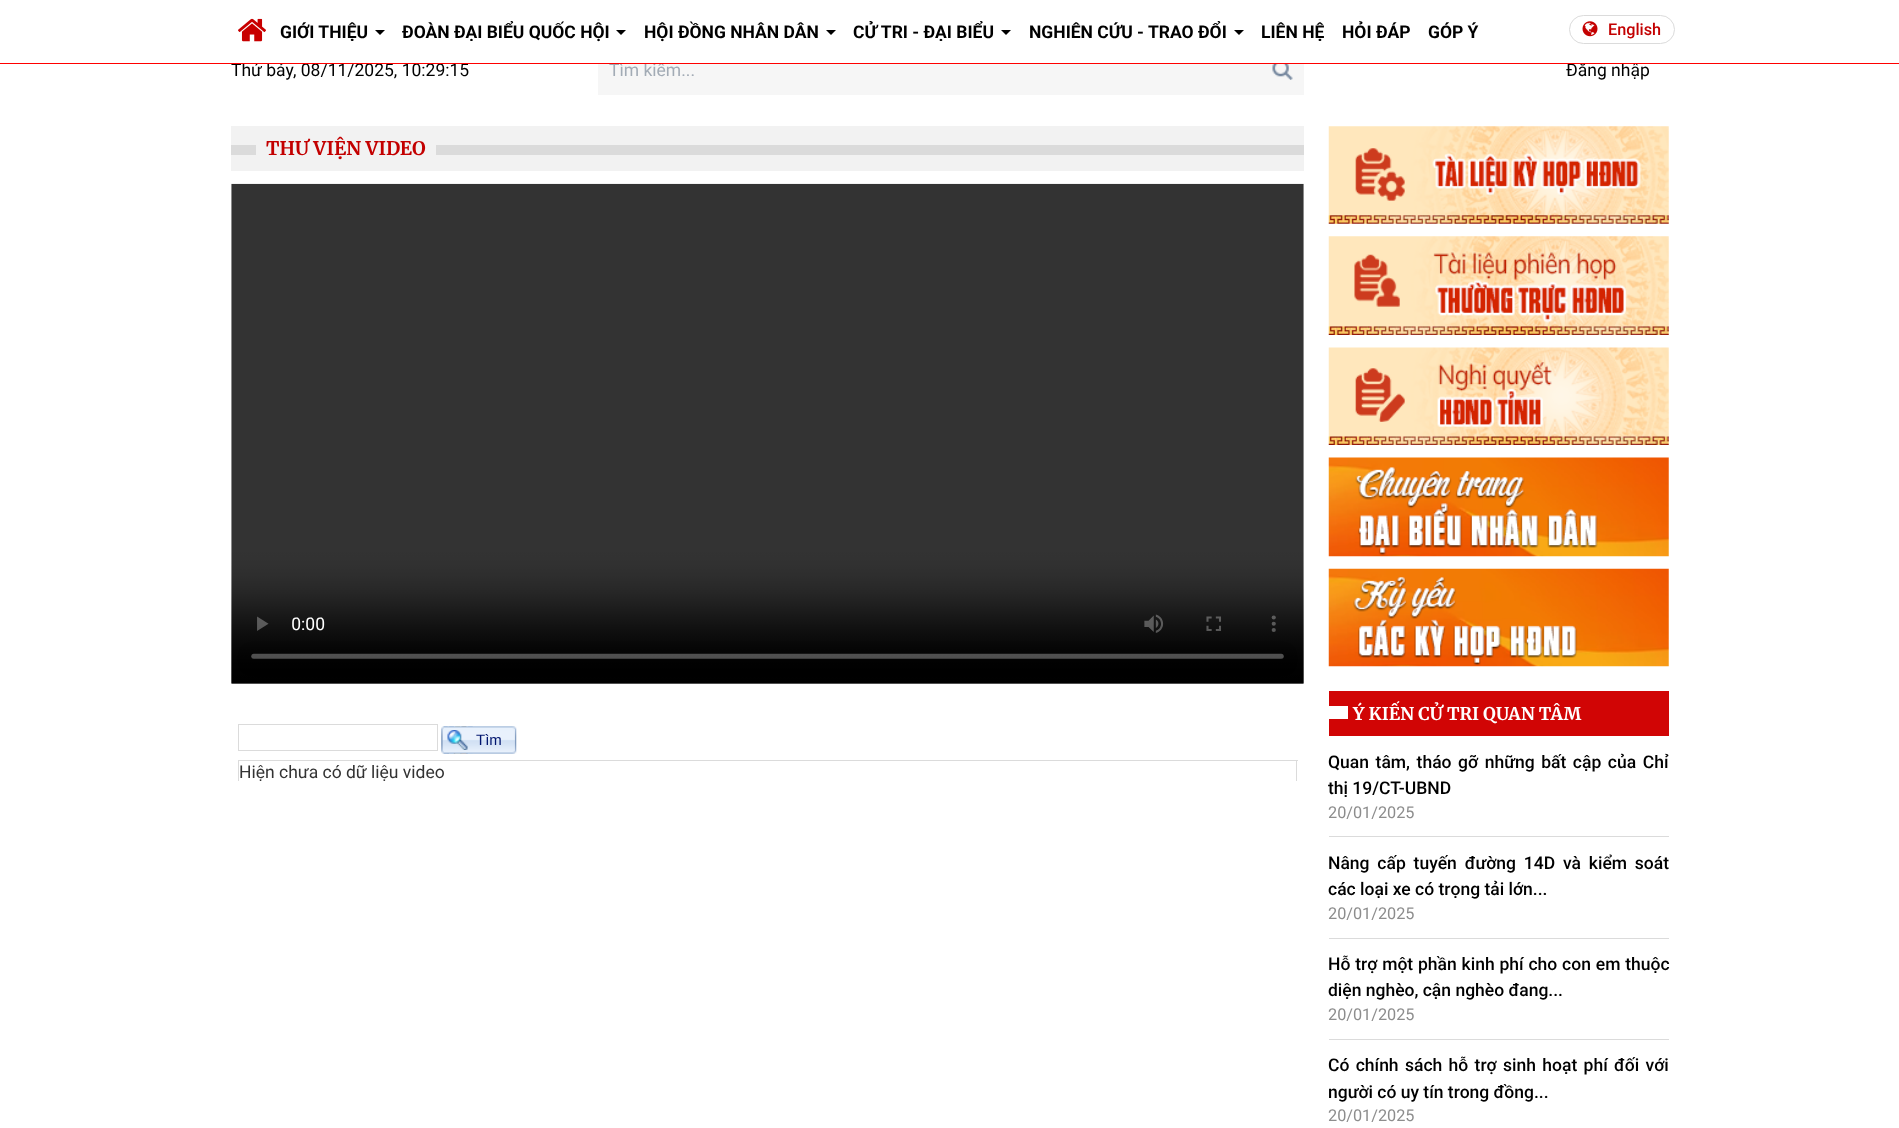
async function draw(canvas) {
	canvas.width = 1899;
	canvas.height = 1128;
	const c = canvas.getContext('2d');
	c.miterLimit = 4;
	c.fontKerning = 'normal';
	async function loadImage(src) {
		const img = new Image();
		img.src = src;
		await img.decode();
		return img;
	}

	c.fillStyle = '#fff';
	c.fillRect(0, 0, 1899, 1128);
	c.font = '17.5px Roboto';
	c.fillStyle = '#000';
	c.fillText('Thứ bảy, 08/11/2025, 10:29:15', 231, 76);
	c.fillStyle = '#f6f6f6';
	c.fillRect(598, 64, 706, 31);
	c.fillStyle = '#a2abb5';
	c.fillText('Tìm kiếm...', 609, 76);
	c.fillStyle = '#000';
	c.fillText('Đăng nhập', 1566, 76);
	c.fillStyle = '#fff';
	c.fillRect(242, 61, 1395, 2);
	c.fillStyle = '#f00';
	c.fillRect(0, 63, 1899, 1);
	c.drawImage(await loadImage('img1.png'), 238, 18, 28, 24);
	c.font = 'bold 17.5px Roboto';
	c.fillStyle = '#000';
	c.fillText('GIỚI THIỆU', 280, 38);
	c.beginPath();
	c.moveTo(375, 30);
	c.lineTo(385, 30);
	c.lineTo(380, 35);
	c.closePath();
	c.fill();
	c.fillText('ĐOÀN ĐẠI BIỂU QUỐC HỘI', 402, 38);
	c.beginPath();
	c.moveTo(616, 30);
	c.lineTo(626, 30);
	c.lineTo(621, 35);
	c.closePath();
	c.fill();
	c.fillText('HỘI ĐỒNG NHÂN DÂN', 644, 38);
	c.beginPath();
	c.moveTo(826, 30);
	c.lineTo(836, 30);
	c.lineTo(831, 35);
	c.closePath();
	c.fill();
	c.fillText('CỬ TRI - ĐẠI BIỂU', 853, 38);
	c.beginPath();
	c.moveTo(1001, 30);
	c.lineTo(1011, 30);
	c.lineTo(1006, 35);
	c.closePath();
	c.fill();
	c.fillText('NGHIÊN CỨU - TRAO ĐỔI', 1029, 38);
	c.beginPath();
	c.moveTo(1234, 30);
	c.lineTo(1244, 30);
	c.lineTo(1239, 35);
	c.closePath();
	c.fill();
	for (const [text, x, y] of [
		['LIÊN HỆ', 1261, 38],
		['HỎI ĐÁP', 1342, 38],
		['GÓP Ý', 1428, 38],
	]) {
		c.fillText(text, x, y);
	}
	c.beginPath();
	c.roundRect(1569.5, 15.5, 105, 28, 14);
	c.strokeStyle = '#dbdbdb';
	c.stroke();
	c.drawImage(await loadImage('img2.png'), 1582, 21, 16, 16);
	c.font = '500 16.25px Roboto';
	c.fillStyle = '#c30000';
	c.fillText('English', 1608, 35);
	c.drawImage(await loadImage('img3.png'), 1272, 64, 21, 16);
	for (const [x, y, w, h, color] of [
		[231, 126, 1073, 45, '#f2f2f2'],
		[231, 145, 1073, 10, '#dbdbdb'],
		[256, 145, 180, 10, '#f2f2f2'],
	]) {
		c.fillStyle = color;
		c.fillRect(x, y, w, h);
	}
	c.font = 'bold 18.75px Merriweather';
	c.fillStyle = '#c30000';
	c.fillText('THƯ VIỆN VIDEO', 266, 155);
	c.drawImage(await loadImage('img4.png'), 231, 183, 1073, 501);
	c.strokeRect(238.5, 724.5, 199, 26);
	c.drawImage(await loadImage('img5.png'), 441, 726, 32, 28);
	c.drawImage(await loadImage('img7.png'), 443, 726, 74, 28);
	c.drawImage(await loadImage('img6.png'), 447, 730, 21, 20);
	c.font = '15px Liberation Sans';
	c.fillStyle = '#00156e';
	c.fillText('Tìm', 476, 745);
	for (const [x, y, w, h, color] of [
		[238, 760, 1060, 1, '#dbdbdb'],
		[1296, 760, 1, 21, '#dbdbdb'],
		[238, 760, 1, 21, '#dbdbdb'],
	]) {
		c.fillStyle = color;
		c.fillRect(x, y, w, h);
	}
	c.font = '17.5px Roboto';
	c.fillStyle = '#333';
	c.fillText('Hiện chưa có dữ liệu video', 239, 778);
	c.drawImage(await loadImage('img8.png'), 1328, 126, 341, 98);
	c.drawImage(await loadImage('img9.png'), 1328, 236, 341, 99);
	c.drawImage(await loadImage('img10.png'), 1328, 347, 341, 98);
	c.drawImage(await loadImage('img11.png'), 1328, 457, 341, 100);
	c.drawImage(await loadImage('img12.png'), 1328, 568, 341, 99);
	c.fillStyle = '#d10505';
	c.fillRect(1329, 691, 340, 45);
	c.fillStyle = '#fff';
	c.fillRect(1329, 706, 19, 13);
	c.font = 'bold 17.5px Merriweather';
	c.fillText('Ý KIẾN CỬ TRI QUAN TÂM', 1353, 720);
	c.fillStyle = '#dbdbdb';
	c.fillRect(1329, 836, 340, 1);
	c.wordSpacing = '2.25px';
	c.font = '500 17.5px Roboto';
	c.fillStyle = '#000';
	c.fillText('Quan tâm, tháo gỡ những bất cập của Chỉ', 1328, 768);
	c.wordSpacing = '0px';
	c.fillText('thị 19/CT-UBND', 1328, 794);
	c.font = '16.25px Roboto';
	c.fillStyle = '#8d8d8d';
	c.fillText('20/01/2025', 1328, 818);
	c.fillStyle = '#dbdbdb';
	c.fillRect(1329, 938, 340, 1);
	c.wordSpacing = '3.5px';
	c.font = '500 17.5px Roboto';
	c.fillStyle = '#000';
	c.fillText('Nâng cấp tuyến đường 14D và kiểm soát', 1328, 869);
	c.wordSpacing = '0px';
	c.fillText('các loại xe có trọng tải lớn...', 1328, 895);
	c.font = '16.25px Roboto';
	c.fillStyle = '#8d8d8d';
	c.fillText('20/01/2025', 1328, 919);
	c.fillStyle = '#dbdbdb';
	c.fillRect(1329, 1039, 340, 1);
	c.wordSpacing = '0.5px';
	c.font = '500 17.5px Roboto';
	c.fillStyle = '#000';
	c.fillText('Hỗ trợ một phần kinh phí cho con em thuộc', 1328, 970);
	c.wordSpacing = '0px';
	c.fillText('diện nghèo, cận nghèo đang...', 1328, 996);
	c.font = '16.25px Roboto';
	c.fillStyle = '#8d8d8d';
	c.fillText('20/01/2025', 1328, 1020);
	c.wordSpacing = '2px';
	c.font = '500 17.5px Roboto';
	c.fillStyle = '#000';
	c.fillText('Có chính sách hỗ trợ sinh hoạt phí đối với', 1328, 1071);
	c.wordSpacing = '0px';
	c.fillText('người có uy tín trong đồng...', 1328, 1098);
	c.font = '16.25px Roboto';
	c.fillStyle = '#8d8d8d';
	c.fillText('20/01/2025', 1328, 1121);
}

draw(document.querySelector('canvas'));
